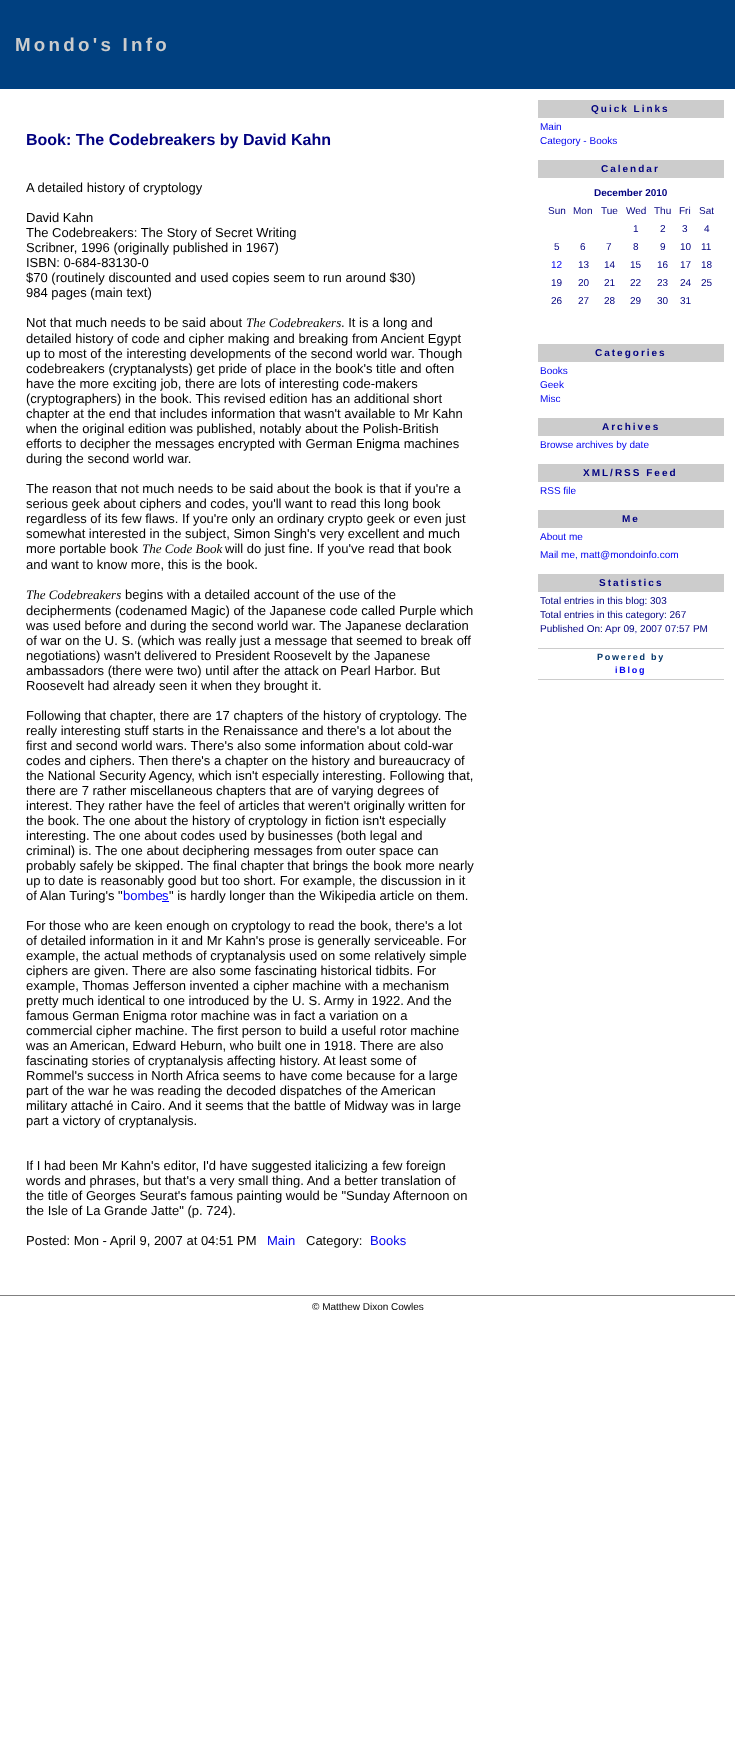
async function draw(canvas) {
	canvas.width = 735;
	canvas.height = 1750;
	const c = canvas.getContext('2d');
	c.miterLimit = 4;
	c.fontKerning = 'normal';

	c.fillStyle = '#fff';
	c.fillRect(0, 0, 735, 1750);
	c.fillStyle = '#004080';
	c.fillRect(0, 0, 735, 89);
	c.letterSpacing = '3.25px';
	c.font = 'bold 18.75px Liberation Sans';
	c.fillStyle = '#ccc';
	c.fillText('Mondo\'s Info', 15, 51);
	c.letterSpacing = '0px';
	c.font = 'bold 16px Liberation Sans';
	c.fillStyle = '#000080';
	c.fillText('Book: The Codebreakers by David Kahn', 26, 145);
	c.font = '13px Liberation Sans';
	c.fillStyle = '#000';
	for (const [text, x, y] of [
		['A detailed history of cryptology', 26, 192],
		['David Kahn', 26, 222],
		['The Codebreakers: The Story of Secret Writing', 26, 237],
		['Scribner, 1996 (originally published in 1967)', 26, 252],
		['ISBN: 0-684-83130-0', 26, 267],
		['$70 (routinely discounted and used copies seem to run around $30)', 26, 282],
		['984 pages (main text)', 26, 297],
		['Not that much needs to be said about', 26, 327],
	]) {
		c.fillText(text, x, y);
	}
	c.font = 'italic 13px Liberation Serif';
	c.fillText('The Codebreakers', 246, 327);
	c.font = '13px Liberation Sans';
	for (const [text, x, y] of [
		['. It is a long and', 341, 327],
		['detailed history of code and cipher making and breaking from Ancient Egypt', 26, 343],
		['up to most of the interesting developments of the second world war. Though', 26, 358],
		['codebreakers (cryptanalysts) get pride of place in the book\'s title and often', 26, 373],
		['have the more exciting job, there are lots of interesting code-makers', 26, 388],
		['(cryptographers) in the book. This revised edition has an additional short', 26, 403],
		['chapter at the end that includes information that wasn\'t available to Mr Kahn', 26, 418],
		['when the original edition was published, notably about the Polish-British', 26, 433],
		['efforts to decipher the messages encrypted with German Enigma machines', 26, 448],
		['during the second world war.', 26, 463],
		['The reason that not much needs to be said about the book is that if you\'re a', 26, 493],
		['serious geek about ciphers and codes, you\'ll want to read this long book', 26, 508],
		['regardless of its few flaws. If you\'re only an ordinary crypto geek or even just', 26, 523],
		['somewhat interested in the subject, Simon Singh\'s very excellent and much', 26, 538],
		['more portable book', 26, 553],
	]) {
		c.fillText(text, x, y);
	}
	c.font = 'italic 13px Liberation Serif';
	c.fillText('The Code Book', 142, 553);
	c.font = '13px Liberation Sans';
	c.fillText('will do just fine. If you\'ve read that book', 225, 553);
	c.fillText('and want to know more, this is the book.', 26, 569);
	c.font = 'italic 13px Liberation Serif';
	c.fillText('The Codebreakers', 26, 599);
	c.font = '13px Liberation Sans';
	for (const [text, x, y] of [
		['begins with a detailed account of the use of the', 125, 599],
		['decipherments (codenamed Magic) of the Japanese code called Purple which', 26, 615],
		['was used before and during the second world war. The Japanese declaration', 26, 630],
		['of war on the U. S. (which was really just a message that seemed to break off', 26, 645],
		['negotiations) wasn\'t delivered to President Roosevelt by the Japanese', 26, 660],
		['ambassadors (there were two) until after the attack on Pearl Harbor. But', 26, 675],
		['Roosevelt had already seen it when they brought it.', 26, 690],
		['Following that chapter, there are 17 chapters of the history of cryptology. The', 26, 720],
		['really interesting stuff starts in the Renaissance and there\'s a lot about the', 26, 735],
		['first and second world wars. There\'s also some information about cold-war', 26, 750],
		['codes and ciphers. Then there\'s a chapter on the history and bureaucracy of', 26, 765],
		['the National Security Agency, which isn\'t especially interesting. Following that,', 26, 780],
		['there are 7 rather miscellaneous chapters that are of varying degrees of', 26, 795],
		['interest. They rather have the feel of articles that weren\'t originally written for', 26, 810],
		['the book. The one about the history of cryptology in fiction isn\'t especially', 26, 825],
		['interesting. The one about codes used by businesses (both legal and', 26, 840],
		['criminal) is. The one about deciphering messages from outer space can', 26, 855],
		['probably safely be skipped. The final chapter that brings the book more nearly', 26, 870],
		['up to date is reasonably good but too short. For example, the discussion in it', 26, 885],
		['of Alan Turing\'s "', 26, 900],
	]) {
		c.fillText(text, x, y);
	}
	c.fillStyle = '#00e';
	c.fillText('bombe', 123, 900);
	c.fillStyle = '#00f';
	c.fillText('s', 162, 900);
	c.fillRect(162, 901, 7, 1);
	c.fillStyle = '#000';
	for (const [text, x, y] of [
		['" is hardly longer than the Wikipedia article on them.', 169, 900],
		['For those who are keen enough on cryptology to read the book, there\'s a lot', 26, 930],
		['of detailed information in it and Mr Kahn\'s prose is generally serviceable. For', 26, 945],
		['example, the actual methods of cryptanalysis used on some relatively simple', 26, 960],
		['ciphers are given. There are also some fascinating historical tidbits. For', 26, 975],
		['example, Thomas Jefferson invented a cipher machine with a mechanism', 26, 990],
		['pretty much identical to one introduced by the U. S. Army in 1922. And the', 26, 1005],
		['famous German Enigma rotor machine was in fact a variation on a', 26, 1020],
		['commercial cipher machine. The first person to build a useful rotor machine', 26, 1035],
		['was an American, Edward Heburn, who built one in 1918. There are also', 26, 1050],
		['fascinating stories of cryptanalysis affecting history. At least some of', 26, 1065],
		['Rommel\'s success in North Africa seems to have come because for a large', 26, 1080],
		['part of the war he was reading the decoded dispatches of the American', 26, 1095],
		['military attaché in Cairo. And it seems that the battle of Midway was in large', 26, 1110],
		['part a victory of cryptanalysis.', 26, 1125],
		['If I had been Mr Kahn\'s editor, I\'d have suggested italicizing a few foreign', 26, 1170],
		['words and phrases, but that\'s a very small thing. And a better translation of', 26, 1185],
		['the title of Georges Seurat\'s famous painting would be "Sunday Afternoon on', 26, 1200],
		['the Isle of La Grande Jatte" (p. 724).', 26, 1215],
		['Posted: Mon - April 9, 2007 at 04:51 PM', 26, 1245],
	]) {
		c.fillText(text, x, y);
	}
	c.fillStyle = '#00e';
	c.fillText('Main', 267, 1245);
	c.fillStyle = '#000';
	c.fillText('Category:', 306, 1245);
	c.fillStyle = '#00e';
	c.fillText('Books', 370, 1245);
	c.fillStyle = '#ccc';
	c.fillRect(538, 100, 186, 18);
	c.letterSpacing = '2px';
	c.font = 'bold 10px Liberation Sans';
	c.fillStyle = '#000080';
	c.fillText('Quick Links', 591, 112);
	c.letterSpacing = '0px';
	c.font = '10px Liberation Sans';
	c.fillStyle = '#00e';
	c.fillText('Main', 540, 130);
	c.fillText('Category - Books', 540, 144);
	c.fillStyle = '#ccc';
	c.fillRect(538, 160, 186, 18);
	c.letterSpacing = '2px';
	c.font = 'bold 10px Liberation Sans';
	c.fillStyle = '#000080';
	c.fillText('Calendar', 601, 172);
	c.letterSpacing = '0px';
	c.fillText('December 2010', 594, 196);
	c.font = '10px Liberation Sans';
	for (const [text, x, y] of [
		['Sun', 548, 214],
		['Mon', 573, 214],
		['Tue', 601, 214],
		['Wed', 626, 214],
		['Thu', 654, 214],
		['Fri', 679, 214],
		['Sat', 699, 214],
		['1', 633, 232],
		['2', 660, 232],
		['3', 682, 232],
		['4', 704, 232],
		['5', 554, 250],
		['6', 580, 250],
		['7', 606, 250],
		['8', 633, 250],
		['9', 660, 250],
		['10', 680, 250],
		['11', 701, 250],
	]) {
		c.fillText(text, x, y);
	}
	c.fillStyle = '#00e';
	c.fillText('12', 551, 268);
	c.fillStyle = '#000080';
	for (const [text, x, y] of [
		['13', 578, 268],
		['14', 604, 268],
		['15', 630, 268],
		['16', 657, 268],
		['17', 680, 268],
		['18', 701, 268],
		['19', 551, 286],
		['20', 578, 286],
		['21', 604, 286],
		['22', 630, 286],
		['23', 657, 286],
		['24', 680, 286],
		['25', 701, 286],
		['26', 551, 304],
		['27', 578, 304],
		['28', 604, 304],
		['29', 630, 304],
		['30', 657, 304],
		['31', 680, 304],
	]) {
		c.fillText(text, x, y);
	}
	c.fillStyle = '#ccc';
	c.fillRect(538, 344, 186, 18);
	c.letterSpacing = '2px';
	c.font = 'bold 10px Liberation Sans';
	c.fillStyle = '#000080';
	c.fillText('Categories', 595, 356);
	c.letterSpacing = '0px';
	c.font = '10px Liberation Sans';
	c.fillStyle = '#00e';
	for (const [text, x, y] of [
		['Books', 540, 374],
		['Geek', 540, 388],
		['Misc', 540, 402],
	]) {
		c.fillText(text, x, y);
	}
	c.fillStyle = '#ccc';
	c.fillRect(538, 418, 186, 18);
	c.letterSpacing = '2px';
	c.font = 'bold 10px Liberation Sans';
	c.fillStyle = '#000080';
	c.fillText('Archives', 602, 430);
	c.letterSpacing = '0px';
	c.font = '10px Liberation Sans';
	c.fillStyle = '#00e';
	c.fillText('Browse archives by date', 540, 448);
	c.fillStyle = '#ccc';
	c.fillRect(538, 464, 186, 18);
	c.letterSpacing = '2px';
	c.font = 'bold 10px Liberation Sans';
	c.fillStyle = '#000080';
	c.fillText('XML/RSS Feed', 583, 476);
	c.letterSpacing = '0px';
	c.font = '10px Liberation Sans';
	c.fillStyle = '#00e';
	c.fillText('RSS file', 540, 494);
	c.fillStyle = '#ccc';
	c.fillRect(538, 510, 186, 18);
	c.letterSpacing = '2px';
	c.font = 'bold 10px Liberation Sans';
	c.fillStyle = '#000080';
	c.fillText('Me', 622, 522);
	c.letterSpacing = '0px';
	c.font = '10px Liberation Sans';
	c.fillStyle = '#00e';
	c.fillText('About me', 540, 540);
	c.fillText('Mail me, matt@mondoinfo.com', 540, 558);
	c.fillStyle = '#ccc';
	c.fillRect(538, 574, 186, 18);
	c.letterSpacing = '2px';
	c.font = 'bold 10px Liberation Sans';
	c.fillStyle = '#000080';
	c.fillText('Statistics', 599, 586);
	c.letterSpacing = '0px';
	c.font = '10px Liberation Sans';
	for (const [text, x, y] of [
		['Total entries in this blog: 303', 540, 604],
		['Total entries in this category: 267', 540, 618],
		['Published On: Apr 09, 2007 07:57 PM', 540, 632],
	]) {
		c.fillText(text, x, y);
	}
	c.fillStyle = '#ccc';
	c.fillRect(538, 648, 186, 1);
	c.fillRect(538, 679, 186, 1);
	c.letterSpacing = '1.75px';
	c.font = 'bold 9px Liberation Sans';
	c.fillStyle = '#036';
	c.fillText('Powered by', 597, 660);
	c.fillStyle = '#00e';
	c.fillText('iBlog', 615, 673);
	c.fillStyle = '#808080';
	c.fillRect(0, 1295, 735, 1);
	c.letterSpacing = '0px';
	c.font = '10px Liberation Sans';
	c.fillStyle = '#000';
	c.fillText('© Matthew Dixon Cowles', 312, 1310);
}

draw(document.querySelector('canvas'));
